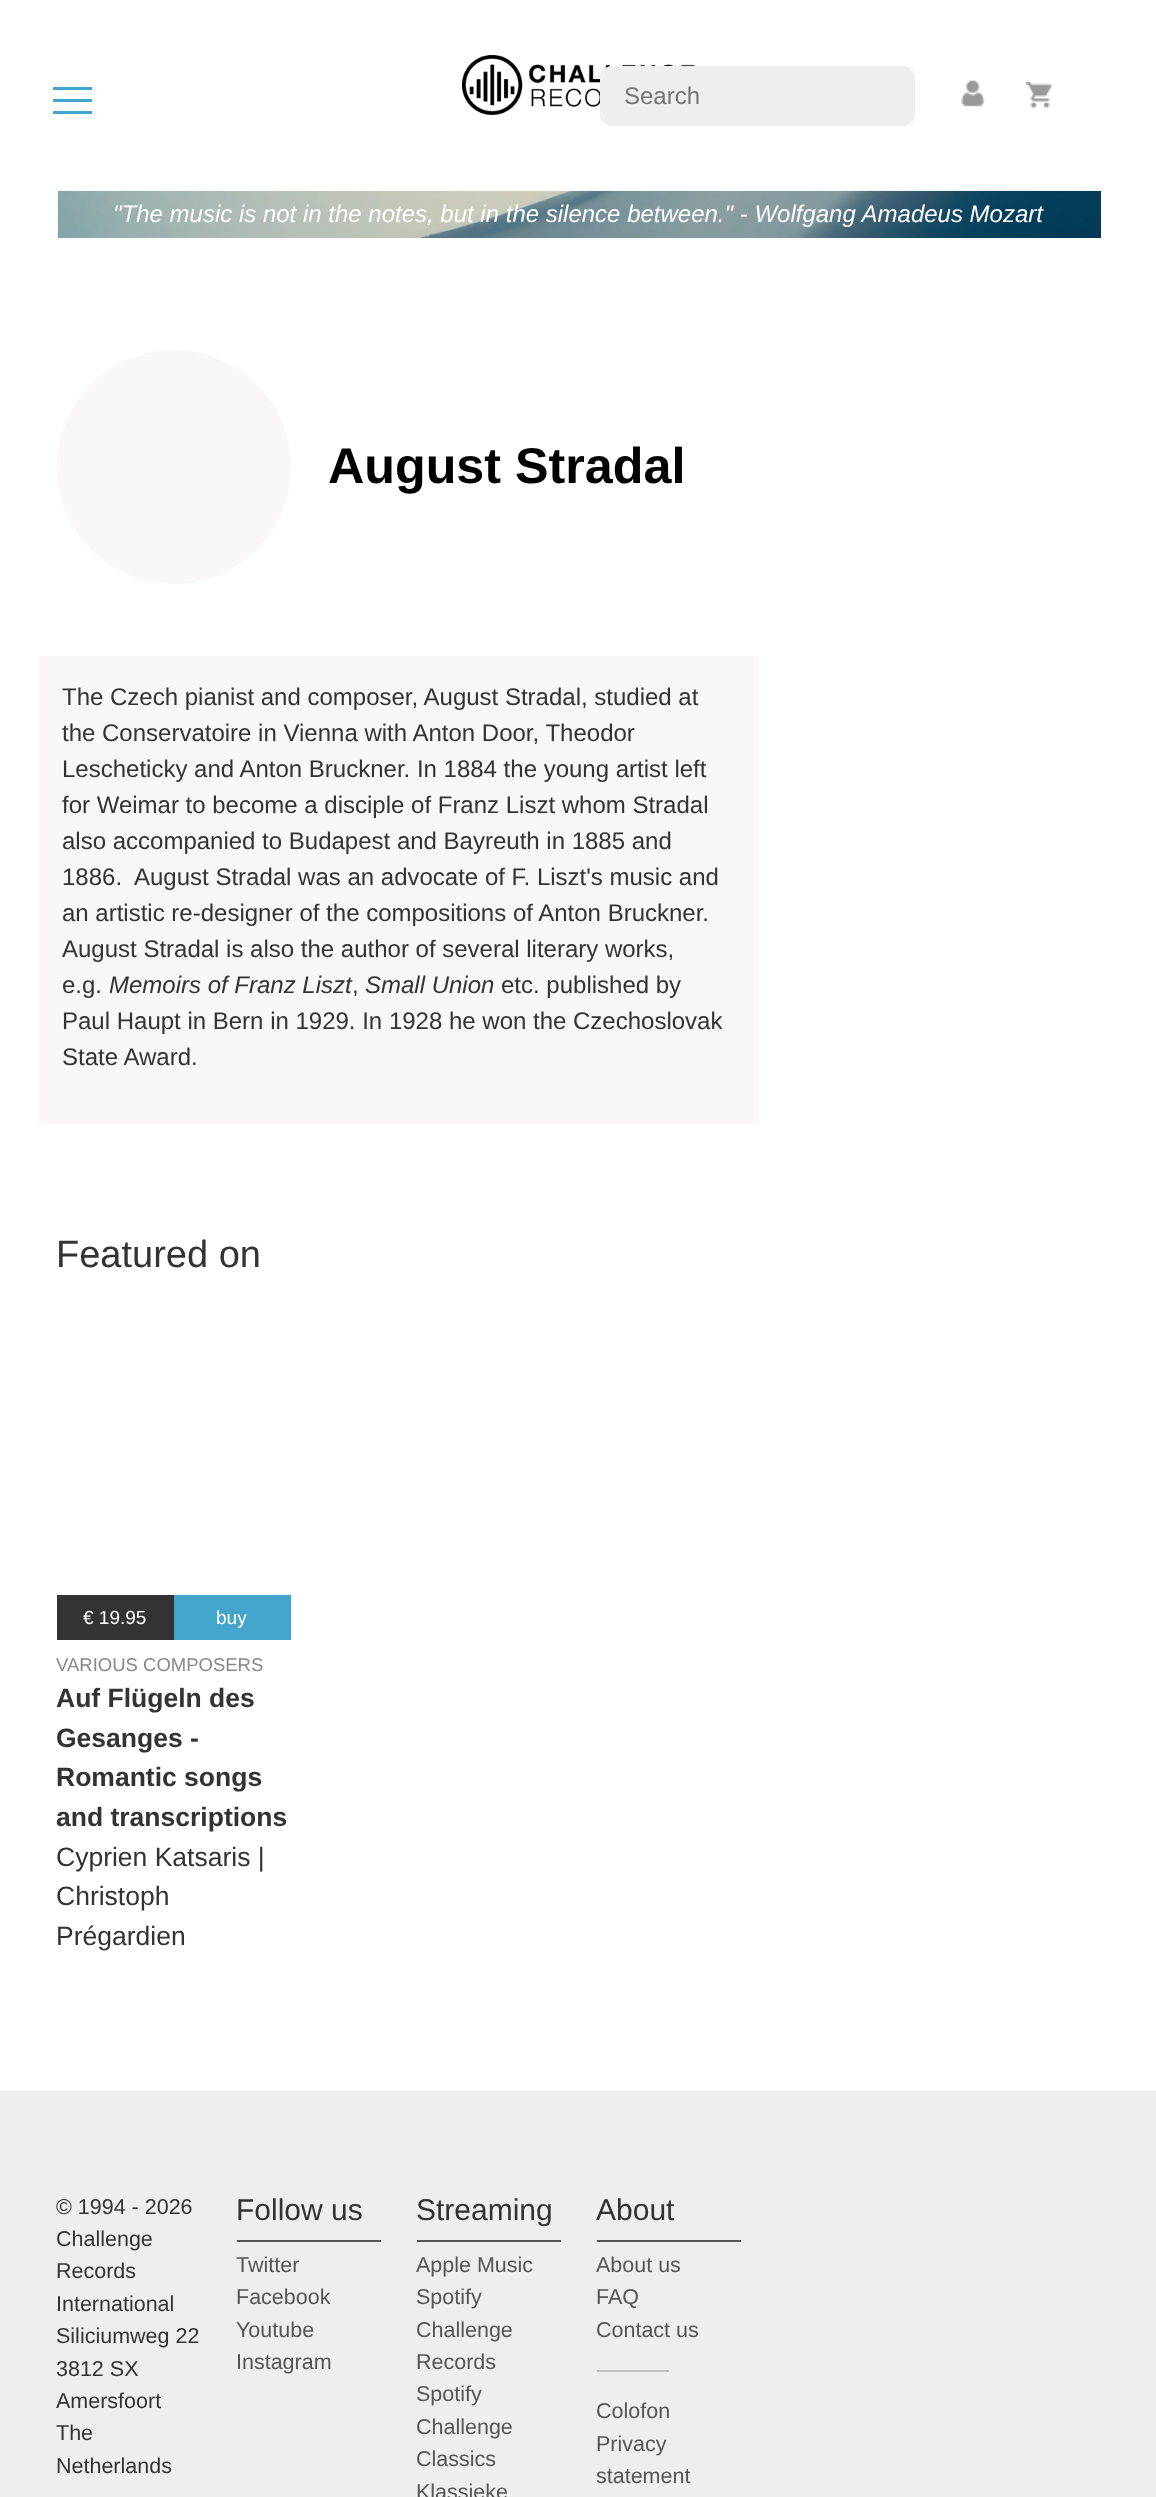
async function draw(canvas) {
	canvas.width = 1156;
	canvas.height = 2497;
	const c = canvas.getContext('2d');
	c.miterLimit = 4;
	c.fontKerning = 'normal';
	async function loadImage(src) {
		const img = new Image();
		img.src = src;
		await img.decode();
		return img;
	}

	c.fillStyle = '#fff';
	c.fillRect(0, 0, 1156, 2497);
	for (const [x, y, w, h, color] of [
		[53, 87, 39, 3, '#43a5cc'],
		[53, 99, 39, 3, '#43a5cc'],
		[53, 111, 39, 3, '#43a5cc'],
	]) {
		c.fillStyle = color;
		c.fillRect(x, y, w, h);
	}
	c.drawImage(await loadImage('img3.png'), 462, 55, 233, 60);
	c.fillStyle = '#eee';
	c.beginPath();
	c.roundRect(600, 66, 315, 60, 12);
	c.fill();
	c.font = '24px Liberation Sans';
	c.fillStyle = '#757575';
	c.fillText('Search', 624, 104);
	c.drawImage(await loadImage('img1.png'), 961, 80, 24, 27);
	c.drawImage(await loadImage('img2.png'), 1025, 81, 27, 27);
	c.drawImage(await loadImage('img4.png'), 57, 190, 1044, 48);
	c.font = 'italic 24px Liberation Sans';
	c.fillStyle = '#fff';
	c.fillText('"The music is not in the notes, but in the silence between." - Wolfgang Amadeus Mozart', 113, 222);
	c.fillStyle = '#f9f7f8';
	c.beginPath();
	c.arc(174, 467, 117, 0, 2 * Math.PI);
	c.fill();
	c.font = 'bold 50.25px Liberation Sans';
	c.fillStyle = '#000';
	c.fillText('August Stradal', 328, 483);
	c.fillStyle = '#f9f7f8';
	c.fillRect(39, 656, 720, 468);
	c.font = '24px Liberation Sans';
	c.fillStyle = '#333';
	for (const [text, x, y] of [
		['The Czech pianist and composer, August Stradal, studied at', 62, 705],
		['the Conservatoire in Vienna with Anton Door, Theodor', 62, 741],
		['Lescheticky and Anton Bruckner. In 1884 the young artist left', 62, 777],
		['for Weimar to become a disciple of Franz Liszt whom Stradal', 62, 813],
		['also accompanied to Budapest and Bayreuth in 1885 and', 62, 849],
		['1886.', 62, 885],
		['August Stradal was an advocate of F. Liszt\'s music and', 134, 885],
		['an artistic re-designer of the compositions of Anton Bruckner.', 62, 921],
		['August Stradal is also the author of several literary works,', 62, 957],
		['e.g.', 62, 993],
	]) {
		c.fillText(text, x, y);
	}
	c.font = 'italic 24px Liberation Sans';
	c.fillText('Memoirs of Franz Liszt', 109, 993);
	c.font = '24px Liberation Sans';
	c.fillText(',', 352, 993);
	c.font = 'italic 24px Liberation Sans';
	c.fillText('Small Union', 365, 993);
	c.font = '24px Liberation Sans';
	for (const [text, x, y] of [
		['etc. published by', 501, 993],
		['Paul Haupt in Bern in 1929. In 1928 he won the Czechoslovak', 62, 1029],
		['State Award.', 62, 1065],
	]) {
		c.fillText(text, x, y);
	}
	c.font = '38px Liberation Sans';
	c.fillText('Featured on', 56, 1267);
	c.fillRect(57, 1595, 117, 45);
	c.font = '19px Liberation Sans';
	c.fillStyle = '#fff';
	c.fillText('€ 19.95', 83, 1624);
	c.fillStyle = '#43a5cc';
	c.fillRect(174, 1595, 117, 45);
	c.fillStyle = '#fff';
	c.fillText('buy', 216, 1624);
	c.font = '18.5px Liberation Sans';
	c.fillStyle = '#888';
	c.fillText('VARIOUS COMPOSERS', 56, 1671);
	c.font = 'bold 26.5px Liberation Sans';
	c.fillStyle = '#333';
	for (const [text, x, y] of [
		['Auf Flügeln des', 56, 1707],
		['Gesanges -', 56, 1747],
		['Romantic songs', 56, 1786],
		['and transcriptions', 56, 1826],
	]) {
		c.fillText(text, x, y);
	}
	c.font = '26.5px Liberation Sans';
	for (const [text, x, y] of [
		['Cyprien Katsaris |', 56, 1866],
		['Christoph', 56, 1905],
		['Prégardien', 56, 1945],
	]) {
		c.fillText(text, x, y);
	}
	c.fillStyle = '#eee';
	c.fillRect(0, 2091, 1156, 406);
	c.font = '21.5px Liberation Sans';
	c.fillStyle = '#333';
	for (const [text, x, y] of [
		['© 1994 - 2026', 56, 2214],
		['Challenge', 56, 2246],
		['Records', 56, 2278],
		['International', 56, 2311],
		['Siliciumweg 22', 56, 2343],
		['3812 SX', 56, 2376],
		['Amersfoort', 56, 2408],
		['The', 56, 2440],
		['Netherlands', 56, 2473],
	]) {
		c.fillText(text, x, y);
	}
	c.font = '30px Liberation Sans';
	c.fillText('Follow us', 236, 2220);
	c.fillStyle = '#555';
	c.fillRect(237, 2240, 144, 2);
	c.font = '21.5px Liberation Sans';
	for (const [text, x, y] of [
		['Twitter', 236, 2272],
		['Facebook', 236, 2304],
		['Youtube', 236, 2337],
		['Instagram', 236, 2369],
	]) {
		c.fillText(text, x, y);
	}
	c.font = '30px Liberation Sans';
	c.fillStyle = '#333';
	c.fillText('Streaming', 416, 2220);
	c.fillStyle = '#555';
	c.fillRect(417, 2240, 144, 2);
	c.font = '21.5px Liberation Sans';
	for (const [text, x, y] of [
		['Apple Music', 416, 2272],
		['Spotify', 416, 2304],
		['Challenge', 416, 2337],
		['Records', 416, 2369],
		['Spotify', 416, 2401],
		['Challenge', 416, 2434],
		['Classics', 416, 2466],
		['Klassieke', 416, 2499],
	]) {
		c.fillText(text, x, y);
	}
	c.font = '30px Liberation Sans';
	c.fillStyle = '#333';
	c.fillText('About', 596, 2220);
	c.fillStyle = '#555';
	c.fillRect(597, 2240, 144, 2);
	c.font = '21.5px Liberation Sans';
	for (const [text, x, y] of [
		['About us', 596, 2272],
		['FAQ', 596, 2304],
		['Contact us', 596, 2337],
	]) {
		c.fillText(text, x, y);
	}
	c.fillStyle = '#bfbfbf';
	c.fillRect(597, 2370, 72, 2);
	c.fillStyle = '#555';
	for (const [text, x, y] of [
		['Colofon', 596, 2418],
		['Privacy', 596, 2451],
		['statement', 596, 2483],
	]) {
		c.fillText(text, x, y);
	}
}

draw(document.querySelector('canvas'));
